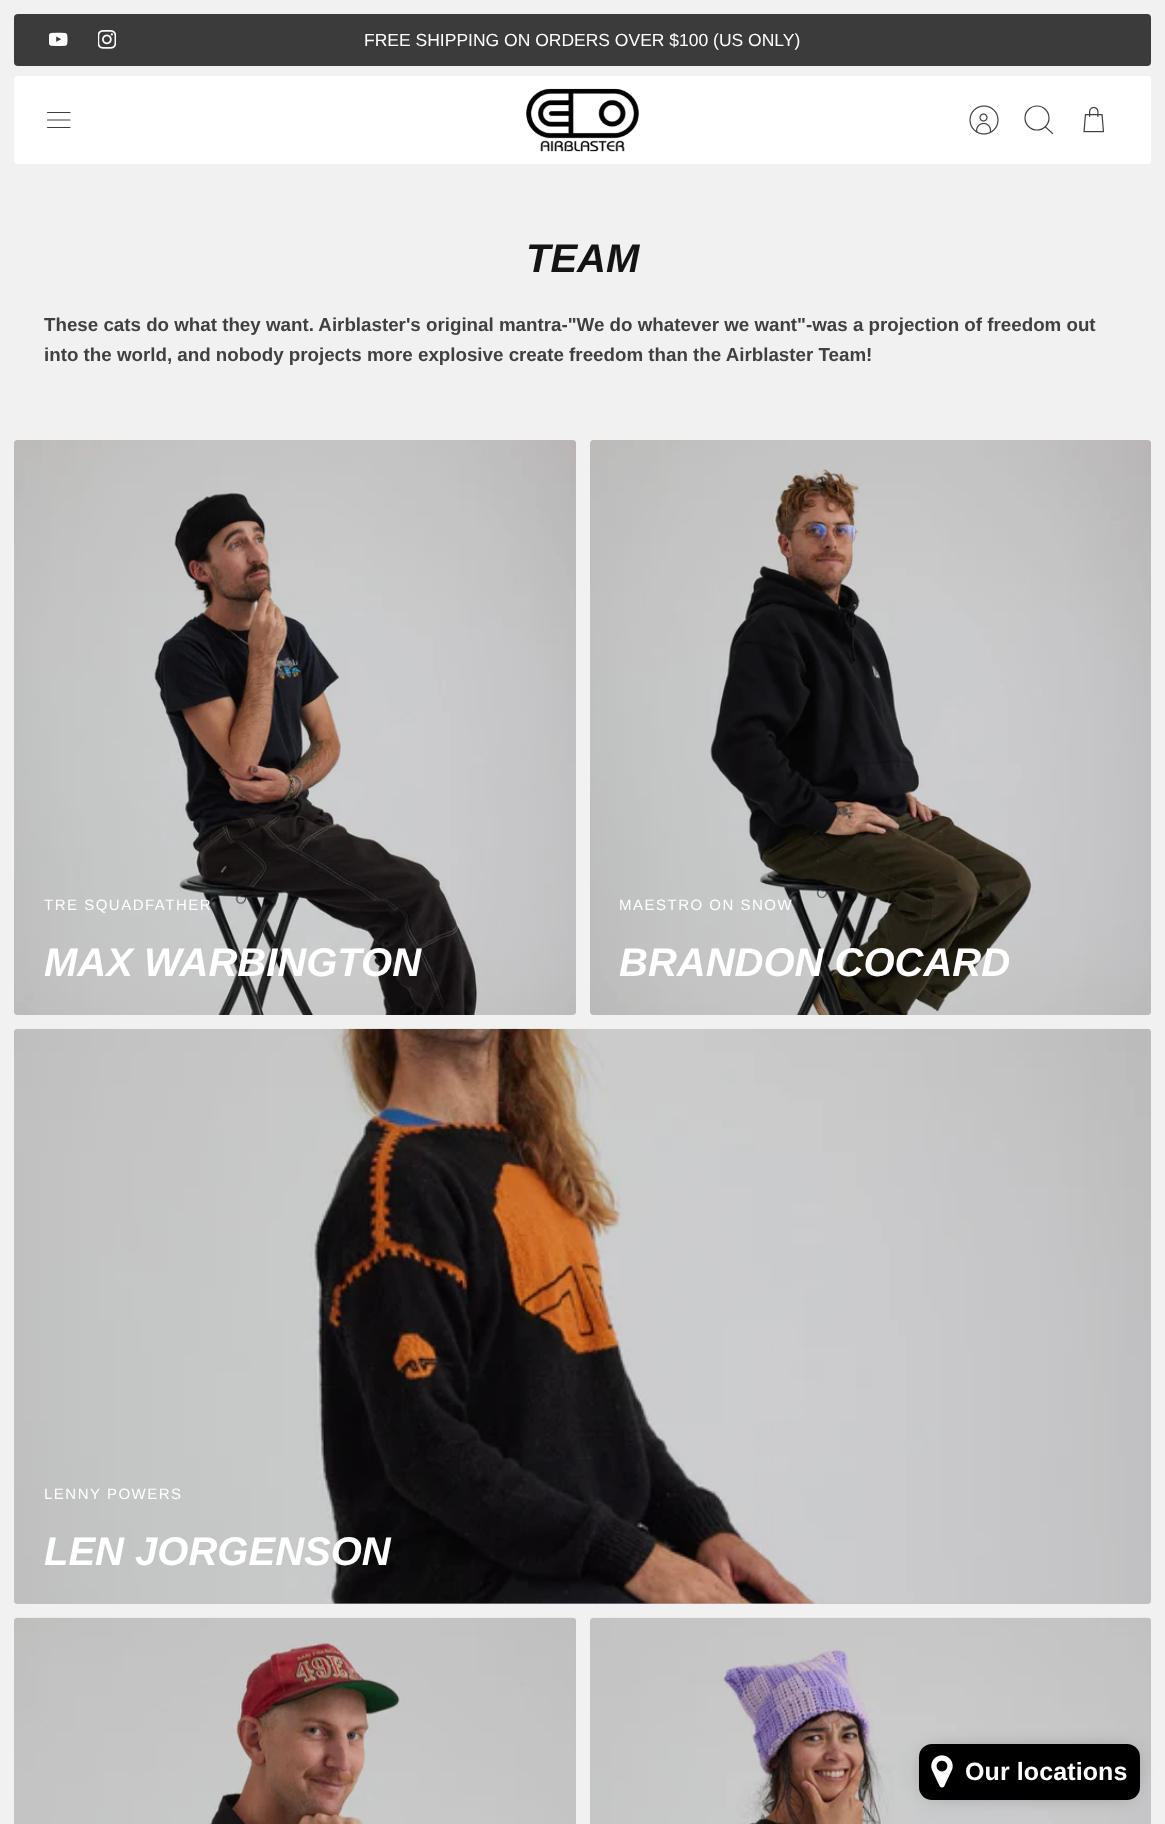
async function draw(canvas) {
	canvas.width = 1165;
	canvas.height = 1824;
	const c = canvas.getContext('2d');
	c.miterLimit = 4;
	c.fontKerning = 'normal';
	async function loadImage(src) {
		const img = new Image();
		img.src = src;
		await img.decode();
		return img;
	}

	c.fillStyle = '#f1f1f1';
	c.fillRect(0, 0, 1165, 1824);
	c.fillStyle = '#3b3b3b';
	c.beginPath();
	c.roundRect(14, 14, 1137, 52, 4);
	c.fill();
	c.drawImage(await loadImage('img1.png'), 49, 32, 19, 14);
	c.drawImage(await loadImage('img2.png'), 98, 30, 18, 19);
	c.font = '17.5px Liberation Sans';
	c.fillStyle = '#fff';
	c.fillText('FREE SHIPPING ON ORDERS OVER $100 (US ONLY)', 364, 46);
	c.beginPath();
	c.roundRect(14, 76, 1137, 88, 4);
	c.fill();
	c.beginPath();
	c.moveTo(47.5, 120);
	c.lineTo(70, 120);
	c.moveTo(47.5, 112.5);
	c.lineTo(70, 112.5);
	c.moveTo(47.5, 127.5);
	c.lineTo(70, 127.5);
	c.strokeStyle = '#3c4043';
	c.lineWidth = 1.2;
	c.lineCap = 'round';
	c.lineJoin = 'round';
	c.stroke();
	c.drawImage(await loadImage('img3.png'), 526, 88, 113, 64);
	c.drawImage(await loadImage('img4.png'), 969, 105, 30, 30);
	c.beginPath();
	c.arc(1037, 118, 12, 0, 2 * Math.PI);
	c.stroke();
	c.beginPath();
	c.moveTo(1045.5, 127);
	c.lineTo(1052.5, 133.5);
	c.lineCap = 'square';
	c.lineJoin = 'miter';
	c.stroke();
	c.drawImage(await loadImage('img5.png'), 1083, 106, 22, 27);
	c.font = 'italic bold 40px Liberation Sans';
	c.fillStyle = '#141414';
	c.fillText('TEAM', 526, 272);
	c.font = 'bold 18.75px Liberation Sans';
	c.fillStyle = '#404040';
	c.fillText('These cats do what they want. Airblaster\'s original mantra-"We do whatever we want"-was a projection of freedom out', 44, 331);
	c.fillText('into the world, and nobody projects more explosive create freedom than the Airblaster Team!', 44, 361);
	c.drawImage(await loadImage('img6.png'), 14, 440, 562, 575);
	c.fillStyle = '#1212121a';
	c.beginPath();
	c.roundRect(14, 440, 562, 575, 4);
	c.fill();
	c.letterSpacing = '1.5px';
	c.font = '15px Liberation Sans';
	c.fillStyle = '#fff';
	c.fillText('TRE SQUADFATHER', 44, 910);
	c.letterSpacing = '0px';
	c.font = 'italic bold 40px Liberation Sans';
	c.fillText('MAX WARBINGTON', 44, 976);
	c.drawImage(await loadImage('img7.png'), 590, 440, 561, 575);
	c.fillStyle = '#1212121a';
	c.beginPath();
	c.roundRect(590, 440, 561, 575, 4);
	c.fill();
	c.letterSpacing = '1.5px';
	c.font = '15px Liberation Sans';
	c.fillStyle = '#fff';
	c.fillText('MAESTRO ON SNOW', 619, 910);
	c.letterSpacing = '0px';
	c.font = 'italic bold 40px Liberation Sans';
	c.fillText('BRANDON COCARD', 619, 976);
	c.fillStyle = '#dadada';
	c.beginPath();
	c.roundRect(14, 1029, 1137, 575, 4);
	c.fill();
	c.drawImage(await loadImage('img8.png'), 14, 1028, 1137, 576);
	c.fillStyle = '#1212121a';
	c.beginPath();
	c.roundRect(14, 1029, 1137, 575, 4);
	c.fill();
	c.letterSpacing = '1.5px';
	c.font = '15px Liberation Sans';
	c.fillStyle = '#fff';
	c.fillText('LENNY POWERS', 44, 1499);
	c.letterSpacing = '0px';
	c.font = 'italic bold 40px Liberation Sans';
	c.fillText('LEN JORGENSON', 44, 1565);
	c.drawImage(await loadImage('img9.png'), 14, 1617, 562, 207);
	c.fillStyle = '#1212121a';
	c.beginPath();
	c.roundRect(14, 1618, 562, 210, 4);
	c.fill();
	c.drawImage(await loadImage('img10.png'), 590, 1617, 561, 207);
	c.beginPath();
	c.roundRect(590, 1618, 561, 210, 4);
	c.fill();
	c.fillStyle = '#5a5a5a';
	c.filter = 'blur(11px)';
	c.beginPath();
	c.roundRect(930, 1755, 199, 34, 1);
	c.fill();
	c.filter = 'none';
	c.fillStyle = '#000';
	c.beginPath();
	c.roundRect(919, 1744, 221, 56, 13);
	c.fill();
	c.drawImage(await loadImage('img11.png'), 931, 1755, 22, 33);
	c.letterSpacing = '0.1px';
	c.font = 'bold 25px Liberation Sans';
	c.fillStyle = '#fff';
	c.fillText('Our locations', 965, 1780);
}

draw(document.querySelector('canvas'));
